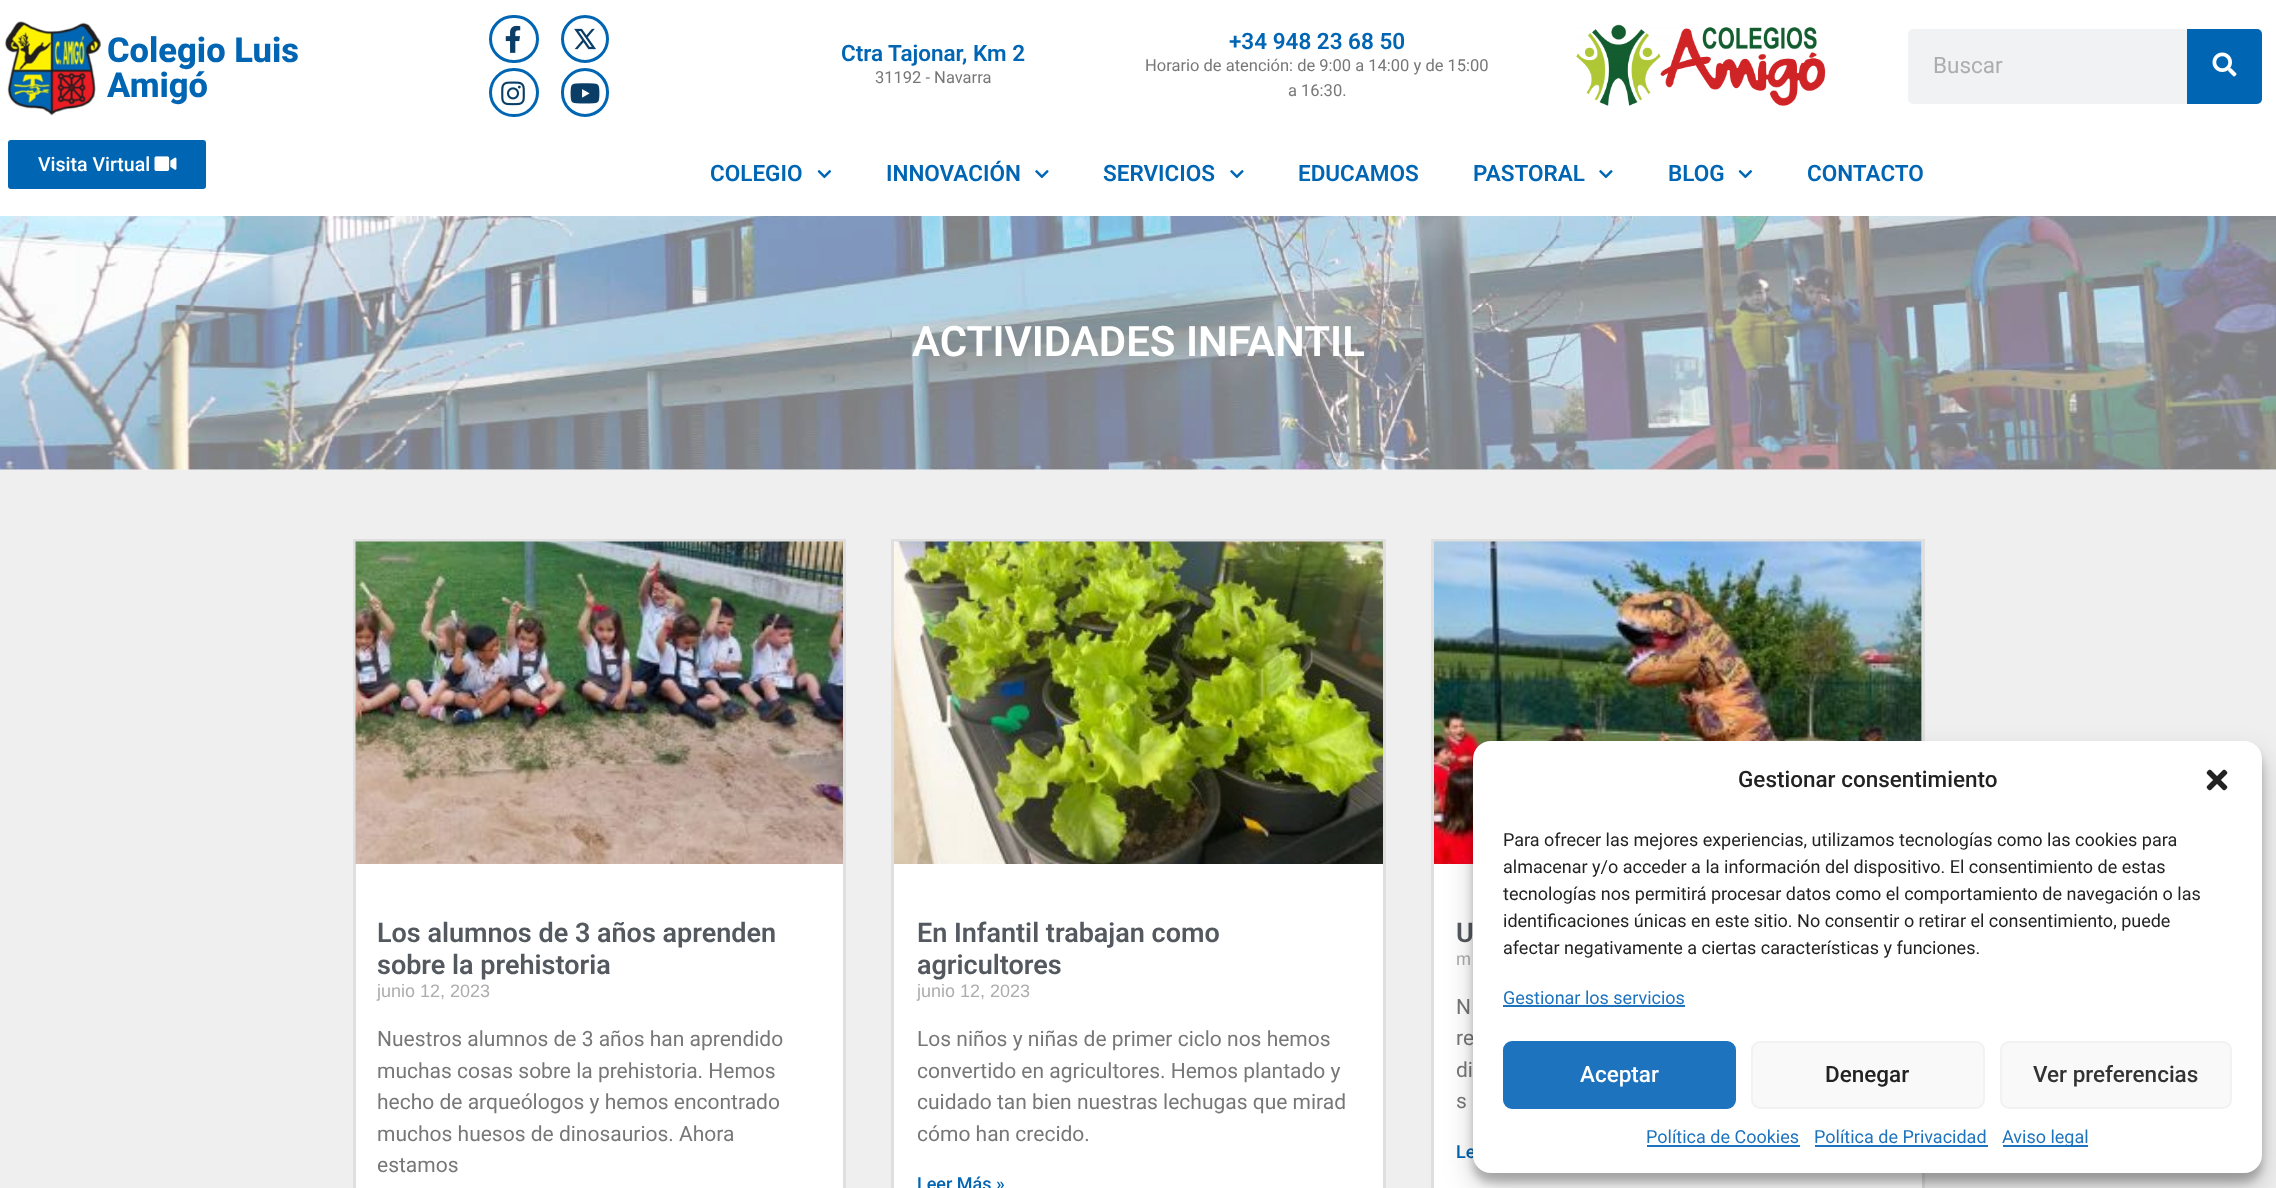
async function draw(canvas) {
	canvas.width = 2276;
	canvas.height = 1188;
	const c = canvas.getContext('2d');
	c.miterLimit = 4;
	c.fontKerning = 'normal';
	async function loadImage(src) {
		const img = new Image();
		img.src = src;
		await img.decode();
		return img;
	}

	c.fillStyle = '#efefef';
	c.fillRect(0, 0, 2276, 1188);
	c.fillStyle = '#f7f7f7';
	c.fillRect(0, 469, 2276, 1);
	c.fillStyle = '#fff';
	c.fillRect(0, 0, 2276, 216);
	c.drawImage(await loadImage('img1.png'), 4, 21, 97, 95);
	c.font = '800 34.5px Roboto';
	c.fillStyle = '#0065b3';
	c.fillText('Colegio Luis', 107, 62);
	c.fillText('Amigó', 107, 97);
	c.beginPath();
	c.roundRect(8, 140, 198, 49, 3);
	c.fill();
	c.font = '500 19.5px Roboto';
	c.fillStyle = '#fff';
	c.fillText('Visita Virtual', 38, 171);
	c.drawImage(await loadImage('img2.png'), 154, 156, 23, 15);
	c.beginPath();
	c.roundRect(490.5, 16.5, 47, 45, 22.5);
	c.strokeStyle = '#0065b3';
	c.lineWidth = 3;
	c.stroke();
	c.drawImage(await loadImage('img3.png'), 505, 25, 16, 28);
	c.beginPath();
	c.arc(585, 39, 22.5, 0, 2 * Math.PI);
	c.stroke();
	c.drawImage(await loadImage('img4.png'), 574, 28, 22, 22);
	c.beginPath();
	c.roundRect(490.5, 69.5, 47, 46, 23);
	c.stroke();
	c.drawImage(await loadImage('img5.png'), 501, 81, 24, 25);
	c.beginPath();
	c.roundRect(562.5, 69.5, 45, 46, 22.5);
	c.stroke();
	c.drawImage(await loadImage('img6.png'), 570, 83, 30, 21);
	c.font = '600 22.5px Roboto';
	c.fillStyle = '#0065b3';
	c.fillText('Ctra Tajonar, Km 2', 841, 61);
	c.font = '16.5px Roboto';
	c.fillStyle = '#777';
	c.fillText('31192 - Navarra', 875, 83);
	c.font = '600 22.5px Roboto';
	c.fillStyle = '#0065b3';
	c.fillText('+34 948 23 68 50', 1229, 49);
	c.font = '16.5px Roboto';
	c.fillStyle = '#777';
	c.fillText('Horario de atención: de 9:00 a 14:00 y de 15:00', 1145, 71);
	c.fillText('a 16:30.', 1288, 96);
	c.drawImage(await loadImage('img7.png'), 1576, 24, 250, 82);
	c.fillStyle = '#f1f2f3';
	c.beginPath();
	c.roundRect(1908, 29, 354, 75, 5);
	c.fill();
	c.font = '22.5px Roboto';
	c.fillStyle = '#adadad';
	c.fillText('Buscar', 1933, 73);
	c.fillStyle = '#0065b3';
	c.beginPath();
	c.roundRect(2187, 29, 75, 75, [0, 5, 5, 0]);
	c.fill();
	c.drawImage(await loadImage('img8.png'), 2212, 52, 25, 25);
	c.font = '600 22.5px Roboto';
	c.fillText('COLEGIO', 710, 181);
	c.drawImage(await loadImage('img9.png'), 817, 170, 15, 9);
	c.fillText('INNOVACIÓN', 886, 181);
	c.drawImage(await loadImage('img10.png'), 1035, 170, 14, 9);
	c.fillText('SERVICIOS', 1103, 181);
	c.drawImage(await loadImage('img10.png'), 1230, 170, 14, 9);
	c.fillText('EDUCAMOS', 1298, 181);
	c.fillText('PASTORAL', 1473, 181);
	c.drawImage(await loadImage('img10.png'), 1599, 170, 14, 9);
	c.fillText('BLOG', 1668, 181);
	c.drawImage(await loadImage('img9.png'), 1738, 170, 15, 9);
	c.fillText('CONTACTO', 1807, 181);
	c.drawImage(await loadImage('img11.png'), 0, 216, 2276, 254);
	c.font = '600 42px Roboto';
	c.fillStyle = '#fff';
	c.fillText('ACTIVIDADES INFANTIL', 912, 356);
	c.fillRect(356, 864, 487, 324);
	c.strokeStyle = '#dfdfdf';
	c.strokeRect(354.5, 540.5, 490, 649);
	c.drawImage(await loadImage('img12.png'), 355, 541, 488, 323);
	c.font = '600 27px Roboto';
	c.fillStyle = '#54595f';
	c.fillText('Los alumnos de 3 años aprenden', 377, 942);
	c.fillText('sobre la prehistoria', 377, 974);
	c.font = '18px Liberation Sans';
	c.fillStyle = '#adadad';
	c.fillText('junio 12, 2023', 377, 997);
	c.font = '21px Roboto';
	c.fillStyle = '#777';
	for (const [text, x, y] of [
		['Nuestros alumnos de 3 años han aprendido', 377, 1046],
		['muchas cosas sobre la prehistoria. Hemos', 377, 1078],
		['hecho de arqueólogos y hemos encontrado', 377, 1109],
		['muchos huesos de dinosaurios. Ahora', 377, 1141],
		['estamos', 377, 1172],
	]) {
		c.fillText(text, x, y);
	}
	c.fillStyle = '#fff';
	c.fillRect(894, 864, 489, 324);
	c.strokeRect(892.5, 540.5, 492, 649);
	c.drawImage(await loadImage('img13.png'), 894, 541, 489, 323);
	c.font = '600 27px Roboto';
	c.fillStyle = '#54595f';
	c.fillText('En Infantil trabajan como', 917, 942);
	c.fillText('agricultores', 917, 974);
	c.font = '18px Liberation Sans';
	c.fillStyle = '#adadad';
	c.fillText('junio 12, 2023', 917, 997);
	c.font = '21px Roboto';
	c.fillStyle = '#777';
	for (const [text, x, y] of [
		['Los niños y niñas de primer ciclo nos hemos', 917, 1046],
		['convertido en agricultores. Hemos plantado y', 917, 1078],
		['cuidado tan bien nuestras lechugas que mirad', 917, 1109],
		['cómo han crecido.', 917, 1141],
	]) {
		c.fillText(text, x, y);
	}
	c.font = '500 18px Roboto';
	c.fillStyle = '#0065b3';
	c.fillText('Leer Más »', 917, 1190);
	c.fillStyle = '#fff';
	c.beginPath();
	c.rect(1432.5, 540.5, 491, 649);
	c.fill();
	c.stroke();
	c.drawImage(await loadImage('img14.png'), 1434, 541, 488, 323);
	c.font = '600 27px Roboto';
	c.fillStyle = '#54595f';
	c.fillText('U', 1456, 942);
	c.font = '18px Liberation Sans';
	c.fillStyle = '#adadad';
	c.fillText('m', 1456, 965);
	c.font = '21px Roboto';
	c.fillStyle = '#777';
	for (const [text, x, y] of [
		['N', 1456, 1014],
		['re', 1456, 1045],
		['di', 1456, 1077],
		['s', 1456, 1108],
	]) {
		c.fillText(text, x, y);
	}
	c.font = '500 18px Roboto';
	c.fillStyle = '#0065b3';
	c.fillText('Le', 1456, 1158);
	c.fillStyle = '#0000003b';
	c.filter = 'blur(4.5px)';
	c.beginPath();
	c.roundRect(1473, 750, 789, 432, 18);
	c.fill();
	c.filter = 'none';
	c.fillStyle = '#00000030';
	c.filter = 'blur(15px)';
	c.beginPath();
	c.roundRect(1473, 756, 789, 432, 18);
	c.fill();
	c.filter = 'none';
	c.fillStyle = '#fff';
	c.beginPath();
	c.roundRect(1473, 741, 789, 432, 18);
	c.fill();
	c.font = '500 22.5px Roboto';
	c.fillStyle = '#222';
	c.fillText('Gestionar consentimiento', 1738, 787);
	c.drawImage(await loadImage('img15.png'), 2206, 769, 22, 22);
	c.font = '18px Roboto';
	for (const [text, x, y] of [
		['Para ofrecer las mejores experiencias, utilizamos tecnologías como las cookies para', 1503, 846],
		['almacenar y/o acceder a la información del dispositivo. El consentimiento de estas', 1503, 873],
		['tecnologías nos permitirá procesar datos como el comportamiento de navegación o las', 1503, 900],
		['identificaciones únicas en este sitio. No consentir o retirar el consentimiento, puede', 1503, 927],
		['afectar negativamente a ciertas características y funciones.', 1503, 954],
	]) {
		c.fillText(text, x, y);
	}
	c.fillStyle = '#1e73be';
	c.fillText('Gestionar los servicios', 1503, 1004);
	c.fillRect(1503, 1005, 182, 2);
	c.beginPath();
	c.roundRect(1504, 1042, 231, 66, 8);
	c.fill();
	c.strokeStyle = '#1e73be';
	c.lineWidth = 2;
	c.stroke();
	c.font = '500 22.5px Roboto';
	c.fillStyle = '#fff';
	c.fillText('Aceptar', 1580, 1082);
	c.fillStyle = '#f9f9f9';
	c.beginPath();
	c.roundRect(1752, 1042, 232, 66, 8);
	c.fill();
	c.strokeStyle = '#f2f2f2';
	c.stroke();
	c.fillStyle = '#222';
	c.fillText('Denegar', 1825, 1082);
	c.fillStyle = '#f9f9f9';
	c.beginPath();
	c.roundRect(2001, 1042, 230, 66, 8);
	c.fill();
	c.stroke();
	c.fillStyle = '#333';
	c.fillText('Ver preferencias', 2033, 1082);
	c.font = '18px Roboto';
	c.fillStyle = '#1e73be';
	c.fillText('Política de Cookies', 1646, 1143);
	c.fillRect(1647, 1145, 153, 2);
	c.fillText('Política de Privacidad', 1814, 1143);
	c.fillRect(1815, 1145, 173, 2);
	c.fillRect(2003, 1145, 85, 2);
	c.fillText('Aviso legal', 2002, 1143);
}

draw(document.querySelector('canvas'));
